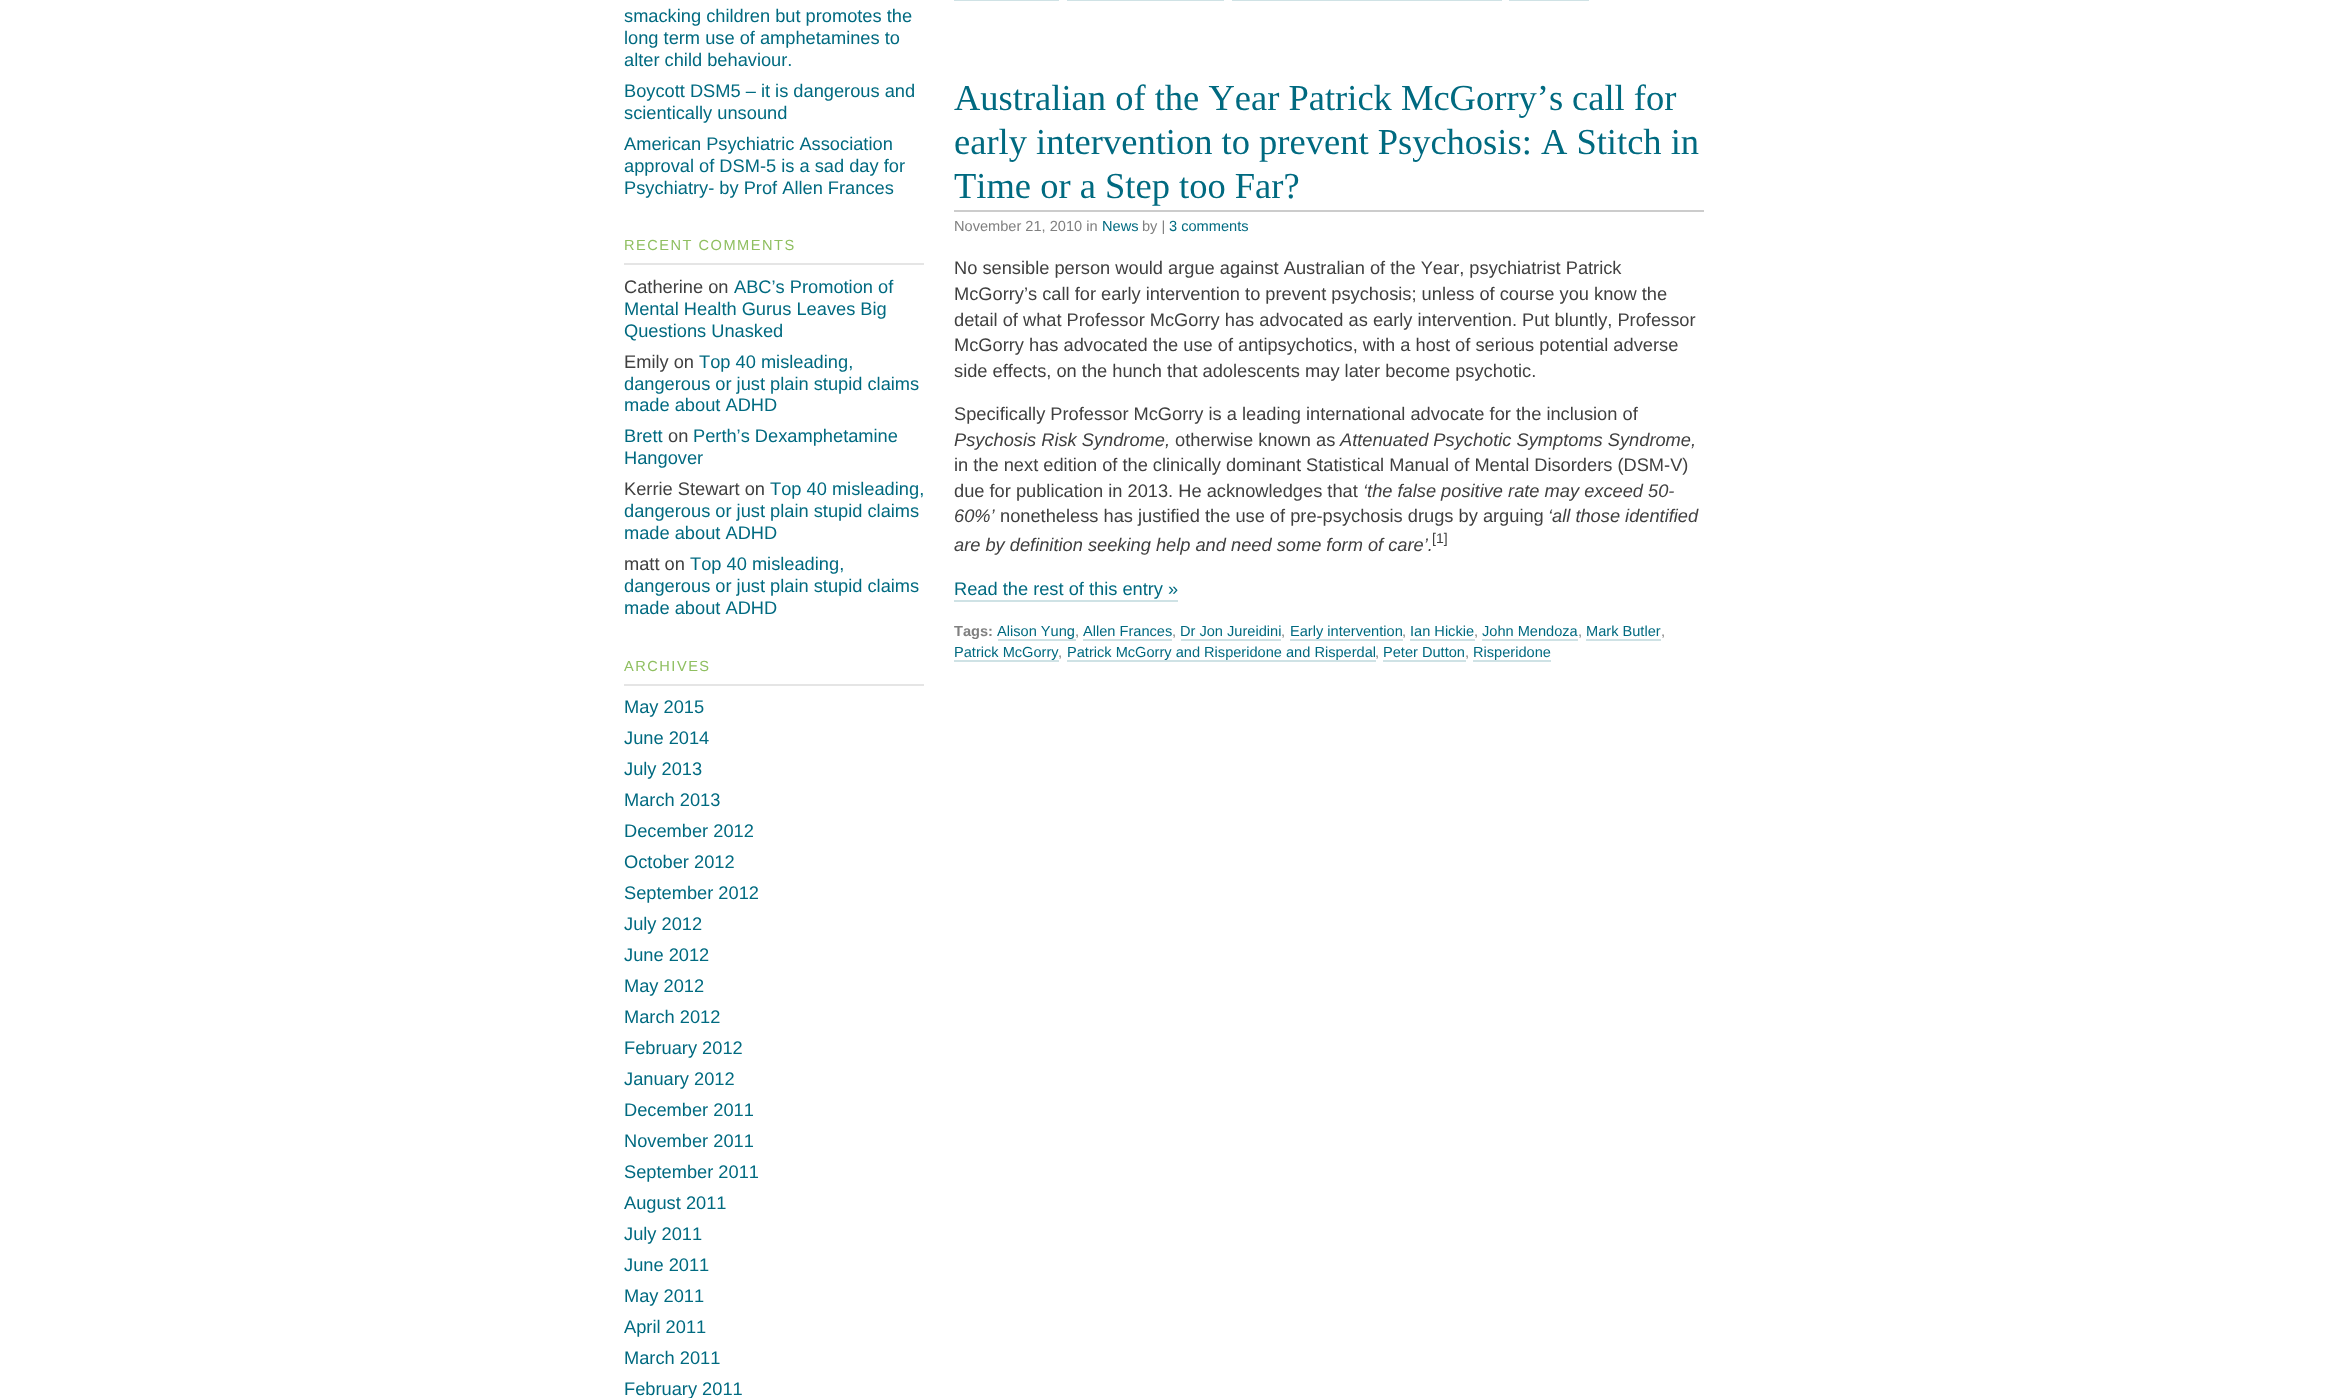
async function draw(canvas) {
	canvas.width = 2327;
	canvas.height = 1398;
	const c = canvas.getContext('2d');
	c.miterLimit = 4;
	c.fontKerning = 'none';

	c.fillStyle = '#fff';
	c.fillRect(0, 0, 2327, 1398);
	c.font = '18.25px Liberation Sans';
	c.fillStyle = '#006a80';
	for (const [text, x, y] of [
		['smacking children but promotes the', 624, 22],
		['long term use of amphetamines to', 624, 44],
		['alter child behaviour.', 624, 66],
		['Boycott DSM5 – it is dangerous and', 624, 97],
		['scientically unsound', 624, 119],
		['American Psychiatric Association', 624, 150],
		['approval of DSM-5 is a sad day for', 624, 172],
		['Psychiatry- by Prof Allen Frances', 624, 194],
	]) {
		c.fillText(text, x, y);
	}
	c.fillStyle = '#e5e5e5';
	c.fillRect(624, 263, 300, 2);
	c.letterSpacing = '1.5px';
	c.font = '14.6px Liberation Sans';
	c.fillStyle = '#8fbf60';
	c.fillText('RECENT COMMENTS', 624, 250);
	c.letterSpacing = '0px';
	c.font = '18.25px Liberation Sans';
	c.fillStyle = '#404040';
	c.fillText('Catherine on', 624, 293);
	c.fillStyle = '#006a80';
	for (const [text, x, y] of [
		['ABC’s Promotion of', 734, 293],
		['Mental Health Gurus Leaves Big', 624, 315],
		['Questions Unasked', 624, 337],
	]) {
		c.fillText(text, x, y);
	}
	c.fillStyle = '#404040';
	c.fillText('Emily on', 624, 368);
	c.fillStyle = '#006a80';
	for (const [text, x, y] of [
		['Top 40 misleading,', 699, 368],
		['dangerous or just plain stupid claims', 624, 390],
		['made about ADHD', 624, 411],
		['Brett', 624, 442],
	]) {
		c.fillText(text, x, y);
	}
	c.fillStyle = '#404040';
	c.fillText('on', 668, 442);
	c.fillStyle = '#006a80';
	c.fillText('Perth’s Dexamphetamine', 693, 442);
	c.fillText('Hangover', 624, 464);
	c.fillStyle = '#404040';
	c.fillText('Kerrie Stewart on', 624, 495);
	c.fillStyle = '#006a80';
	for (const [text, x, y] of [
		['Top 40 misleading,', 770, 495],
		['dangerous or just plain stupid claims', 624, 517],
		['made about ADHD', 624, 539],
	]) {
		c.fillText(text, x, y);
	}
	c.fillStyle = '#404040';
	c.fillText('matt on', 624, 570);
	c.fillStyle = '#006a80';
	for (const [text, x, y] of [
		['Top 40 misleading,', 690, 570],
		['dangerous or just plain stupid claims', 624, 592],
		['made about ADHD', 624, 614],
	]) {
		c.fillText(text, x, y);
	}
	c.fillStyle = '#e5e5e5';
	c.fillRect(624, 684, 300, 2);
	c.letterSpacing = '1.5px';
	c.font = '14.6px Liberation Sans';
	c.fillStyle = '#8fbf60';
	c.fillText('ARCHIVES', 624, 671);
	c.letterSpacing = '0px';
	c.font = '18.25px Liberation Sans';
	c.fillStyle = '#006a80';
	for (const [text, x, y] of [
		['May 2015', 624, 713],
		['June 2014', 624, 744],
		['July 2013', 624, 775],
		['March 2013', 624, 806],
		['December 2012', 624, 837],
		['October 2012', 624, 868],
		['September 2012', 624, 899],
		['July 2012', 624, 930],
		['June 2012', 624, 961],
		['May 2012', 624, 992],
		['March 2012', 624, 1023],
		['February 2012', 624, 1054],
		['January 2012', 624, 1085],
		['December 2011', 624, 1116],
		['November 2011', 624, 1147],
		['September 2011', 624, 1178],
		['August 2011', 624, 1209],
		['July 2011', 624, 1240],
		['June 2011', 624, 1271],
		['May 2011', 624, 1302],
		['April 2011', 624, 1333],
		['March 2011', 624, 1364],
		['February 2011', 624, 1395],
	]) {
		c.fillText(text, x, y);
	}
	for (const [x, y, w, h, color] of [
		[954, 0, 105, 1, '#cfe2e5'],
		[1067, 0, 157, 1, '#cfe2e5'],
		[1232, 0, 270, 1, '#cfe2e5'],
		[1509, 0, 80, 1, '#cfe2e5'],
		[954, 210, 750, 2, '#ccc'],
	]) {
		c.fillStyle = color;
		c.fillRect(x, y, w, h);
	}
	c.font = '36.5px Liberation Serif';
	c.fillStyle = '#006a80';
	for (const [text, x, y] of [
		['Australian of the Year Patrick McGorry’s', 954, 110],
		['call for', 1572, 110],
		['early intervention to prevent Psychosis: A Stitch in', 954, 154],
		['Time or a Step too Far?', 954, 198],
	]) {
		c.fillText(text, x, y);
	}
	c.font = '14.6px Liberation Sans';
	c.fillStyle = '#808080';
	c.fillText('November 21, 2010 in', 954, 231);
	c.fillStyle = '#006a80';
	c.fillText('News', 1102, 231);
	c.fillStyle = '#808080';
	c.fillText('by |', 1142, 231);
	c.fillStyle = '#006a80';
	c.fillText('3 comments', 1169, 231);
	c.font = '18.25px Liberation Sans';
	c.fillStyle = '#404040';
	for (const [text, x, y] of [
		['No sensible person would argue against Australian of the Year, psychiatrist Patrick', 954, 274],
		['McGorry’s call for early intervention to prevent psychosis; unless of course you know the', 954, 300],
		['detail of what Professor McGorry has advocated as early intervention. Put bluntly, Professor', 954, 326],
		['McGorry has advocated the use of antipsychotics, with a host of serious potential adverse', 954, 351],
		['side effects, on the hunch that adolescents may later become psychotic.', 954, 377],
		['Specifically Professor McGorry is a leading international advocate for the inclusion of', 954, 420],
	]) {
		c.fillText(text, x, y);
	}
	c.font = 'italic 18.25px Liberation Sans';
	c.fillText('Psychosis Risk Syndrome,', 954, 446);
	c.font = '18.25px Liberation Sans';
	c.fillText('otherwise known as', 1175, 446);
	c.font = 'italic 18.25px Liberation Sans';
	c.fillText('Attenuated Psychotic Symptoms Syndrome,', 1340, 446);
	c.font = '18.25px Liberation Sans';
	c.fillText('in the next edition of the clinically dominant Statistical Manual of Mental Disorders (DSM-V)', 954, 471);
	c.fillText('due for publication in 2013. He acknowledges that', 954, 497);
	c.font = 'italic 18.25px Liberation Sans';
	c.fillText('‘the false positive rate may exceed 50-', 1363, 497);
	c.fillText('60%’', 954, 522);
	c.font = '18.25px Liberation Sans';
	c.fillText('nonetheless has justified the use of pre-psychosis drugs by arguing', 1000, 522);
	c.font = 'italic 18.25px Liberation Sans';
	c.fillText('‘all those identified', 1548, 522);
	c.fillText('are by definition seeking help and need some form of care’.', 954, 551);
	c.font = '14px Liberation Sans';
	c.fillText('[1]', 1432, 543);
	c.font = '18.25px Liberation Sans';
	c.fillStyle = '#006a80';
	c.fillText('Read the rest of this entry »', 954, 595);
	c.fillStyle = '#cfe2e5';
	c.fillRect(954, 600, 224, 2);
	c.font = 'bold 14.6px Liberation Sans';
	c.fillStyle = '#808080';
	c.fillText('Tags:', 954, 636);
	c.font = '14.6px Liberation Sans';
	c.fillStyle = '#006a80';
	c.fillText('Alison Yung', 997, 636);
	c.fillStyle = '#cfe2e5';
	c.fillRect(998, 639, 78, 2);
	c.fillStyle = '#808080';
	c.fillText(',', 1075, 636);
	c.fillStyle = '#006a80';
	c.fillText('Allen Frances', 1083, 636);
	c.fillStyle = '#cfe2e5';
	c.fillRect(1083, 639, 89, 2);
	c.fillStyle = '#808080';
	c.fillText(',', 1172, 636);
	c.fillStyle = '#006a80';
	c.fillText('Dr Jon Jureidini', 1180, 636);
	c.fillStyle = '#cfe2e5';
	c.fillRect(1181, 639, 100, 2);
	c.fillStyle = '#808080';
	c.fillText(',', 1281, 636);
	c.fillStyle = '#006a80';
	c.fillText('Early intervention', 1290, 636);
	c.fillStyle = '#cfe2e5';
	c.fillRect(1290, 639, 113, 2);
	c.fillStyle = '#808080';
	c.fillText(',', 1402, 636);
	c.fillStyle = '#006a80';
	c.fillText('Ian Hickie', 1410, 636);
	c.fillStyle = '#cfe2e5';
	c.fillRect(1410, 639, 65, 2);
	c.fillStyle = '#808080';
	c.fillText(',', 1474, 636);
	c.fillStyle = '#006a80';
	c.fillText('John Mendoza', 1482, 636);
	c.fillStyle = '#cfe2e5';
	c.fillRect(1482, 639, 96, 2);
	c.fillStyle = '#808080';
	c.fillText(',', 1578, 636);
	c.fillStyle = '#006a80';
	c.fillText('Mark Butler', 1586, 636);
	c.fillStyle = '#cfe2e5';
	c.fillRect(1586, 639, 75, 2);
	c.fillStyle = '#808080';
	c.fillText(',', 1661, 636);
	c.fillStyle = '#006a80';
	c.fillText('Patrick McGorry', 954, 657);
	c.fillStyle = '#cfe2e5';
	c.fillRect(954, 660, 105, 2);
	c.fillStyle = '#808080';
	c.fillText(',', 1058, 657);
	c.fillStyle = '#006a80';
	c.fillText('Patrick McGorry and Risperidone and Risperdal', 1067, 657);
	c.fillStyle = '#cfe2e5';
	c.fillRect(1067, 660, 309, 2);
	c.fillStyle = '#808080';
	c.fillText(',', 1375, 657);
	c.fillStyle = '#006a80';
	c.fillText('Peter Dutton', 1383, 657);
	c.fillStyle = '#cfe2e5';
	c.fillRect(1383, 660, 83, 2);
	c.fillStyle = '#808080';
	c.fillText(',', 1465, 657);
	c.fillStyle = '#006a80';
	c.fillText('Risperidone', 1473, 657);
	c.fillStyle = '#cfe2e5';
	c.fillRect(1473, 660, 78, 2);
}

draw(document.querySelector('canvas'));
